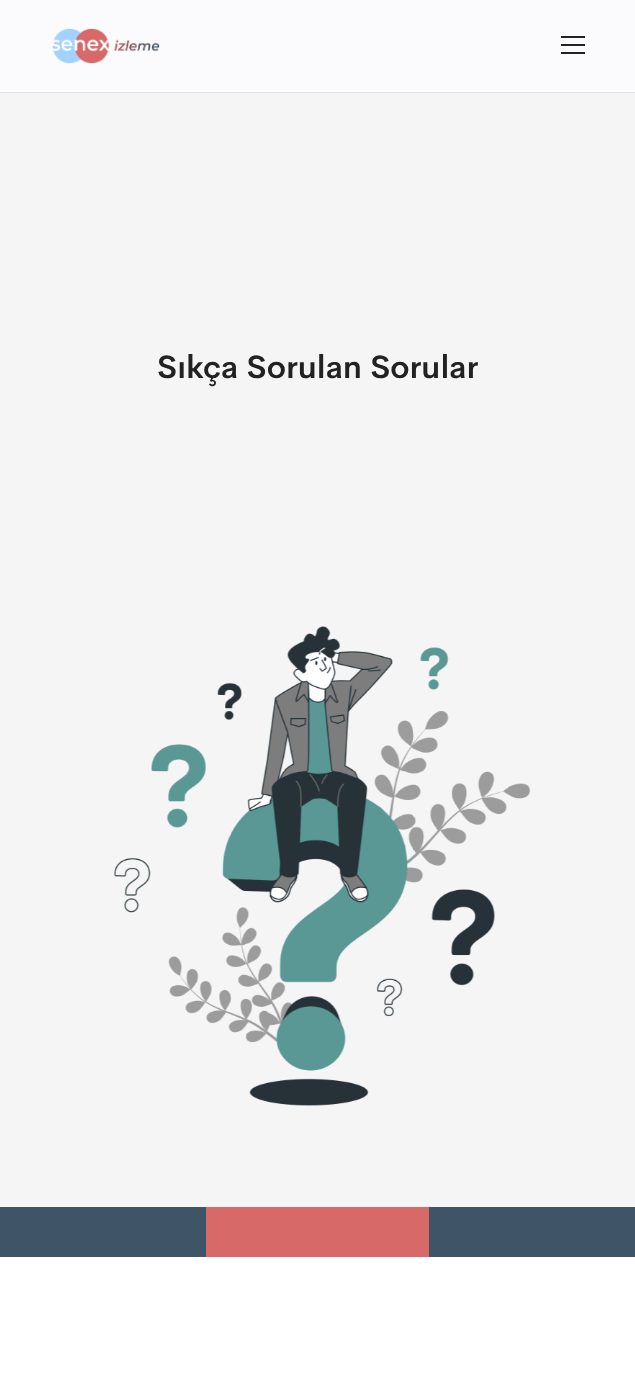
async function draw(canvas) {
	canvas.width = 635;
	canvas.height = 1394;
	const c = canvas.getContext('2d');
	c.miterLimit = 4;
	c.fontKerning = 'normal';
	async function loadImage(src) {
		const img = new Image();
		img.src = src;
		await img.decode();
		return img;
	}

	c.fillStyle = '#fff';
	c.fillRect(0, 0, 635, 1394);
	c.fillStyle = '#fbfbfd';
	c.fillRect(0, 0, 635, 92);
	c.fillStyle = '#dee2e6';
	c.fillRect(0, 92, 635, 1);
	c.drawImage(await loadImage('img1.png'), 52, 28, 108, 36);
	for (const [x, y, w, h, color] of [
		[561, 44, 24, 2, '#222'],
		[561, 36, 24, 2, '#222'],
		[561, 52, 24, 2, '#222'],
		[0, 93, 635, 1114, '#f5f5f5'],
	]) {
		c.fillStyle = color;
		c.fillRect(x, y, w, h);
	}
	c.font = '600 32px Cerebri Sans';
	c.fillStyle = '#222';
	c.fillText('Sıkça Sorulan Sorular', 157, 378);
	c.drawImage(await loadImage('img2.png'), 114, 626, 417, 480);
	c.fillStyle = '#3f5467';
	c.fillRect(0, 1207, 635, 50);
	c.fillStyle = '#d76969';
	c.fillRect(206, 1207, 223, 50);
}

draw(document.querySelector('canvas'));
